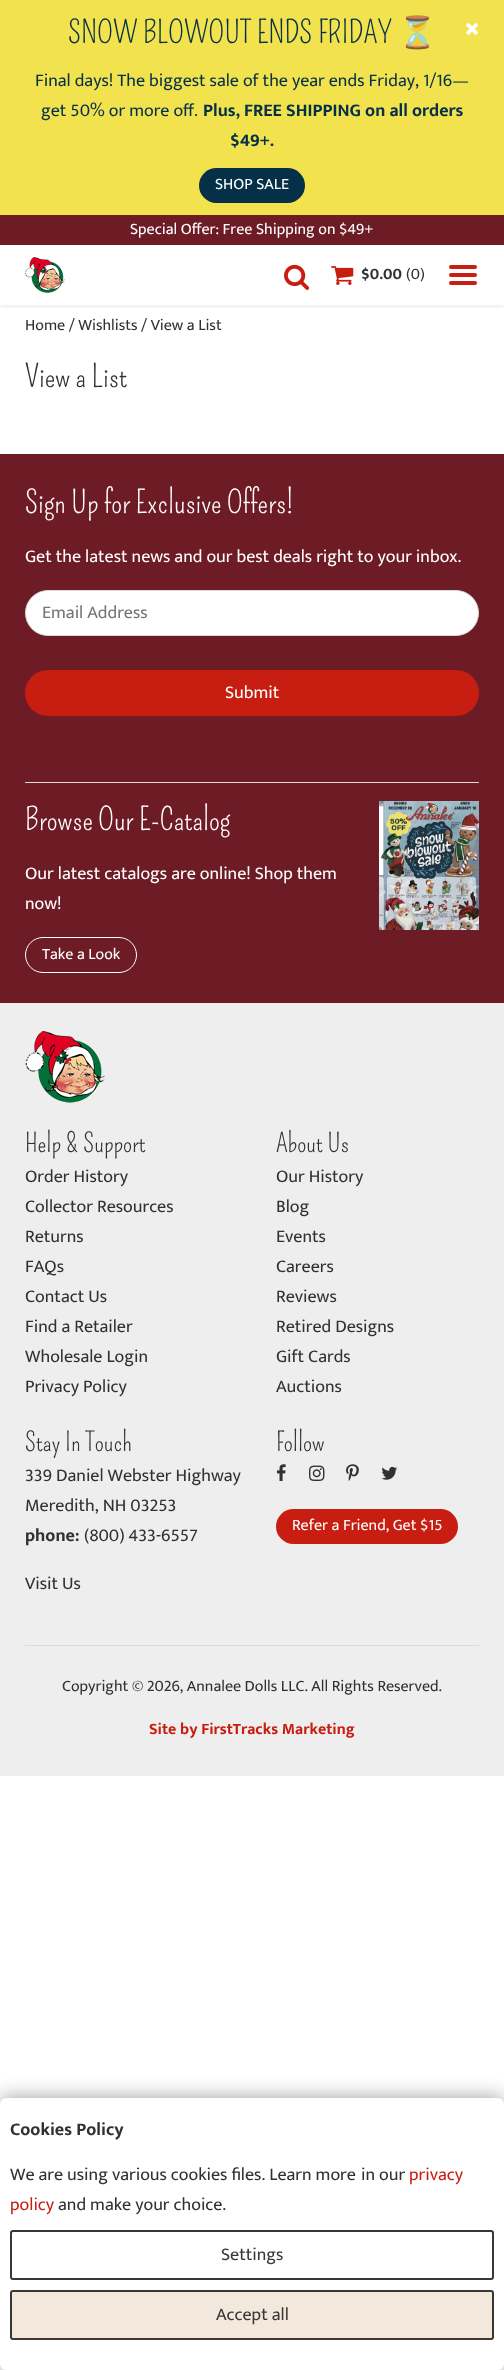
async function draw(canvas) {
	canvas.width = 504;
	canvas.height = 2370;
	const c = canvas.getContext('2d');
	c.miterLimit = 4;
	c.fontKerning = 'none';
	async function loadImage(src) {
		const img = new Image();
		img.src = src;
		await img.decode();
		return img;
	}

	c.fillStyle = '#fff';
	c.fillRect(0, 0, 504, 2370);
	c.fillStyle = '#f2e24d';
	c.fillRect(0, 0, 504, 215);
	c.font = '31px Pompiere';
	c.fillStyle = '#053047';
	c.fillText('SNOW BLOWOUT ENDS FRIDAY', 68, 43);
	c.font = '31px Noto Color Emoji';
	c.fillText('⏳', 398, 43);
	c.font = '18px Mukta';
	c.fillText('Final days! The biggest sale of the year ends Friday, 1/16—', 35, 86);
	c.fillText('get 50% or more off.', 41, 116);
	c.font = 'bold 18px Mukta';
	c.fillText('Plus, FREE SHIPPING on all orders', 203, 116);
	c.fillText('$49+.', 230, 146);
	c.beginPath();
	c.roundRect(199, 168, 106, 35, 17.5);
	c.fill();
	c.font = '16px Mukta';
	c.fillStyle = '#fff';
	c.fillText('SHOP SALE', 215, 189);
	c.drawImage(await loadImage('img1.png'), 466, 23, 12, 12);
	c.fillStyle = '#6d1b25';
	c.fillRect(0, 215, 504, 30);
	c.fillStyle = '#fff';
	c.fillText('Special Offer: Free Shipping on $49+', 130, 234);
	c.save();
	c.beginPath();
	c.rect(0, 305, 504, 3);
	c.clip();
	c.fillStyle = '#00000014';
	c.filter = 'blur(2px)';
	c.beginPath();
	c.rect(0, 247, 504, 60);
	c.fill();
	c.filter = 'none';
	c.restore();
	c.drawImage(await loadImage('img2.png'), 25, 257, 40, 36);
	c.drawImage(await loadImage('img3.png'), 284, 264, 25, 26);
	c.drawImage(await loadImage('img4.png'), 331, 266, 23, 19);
	c.font = 'bold 16px Mukta';
	c.fillStyle = '#303133';
	c.fillText('$0.00', 361, 279);
	c.font = '16px Mukta';
	c.fillText('(0)', 406, 279);
	c.fillStyle = '#c81e11';
	c.beginPath();
	c.roundRect(449, 265, 28, 4, 2);
	c.fill();
	c.beginPath();
	c.roundRect(449, 273, 28, 4, 2);
	c.fill();
	c.beginPath();
	c.roundRect(449, 281, 28, 4, 2);
	c.fill();
	c.fillStyle = '#303133';
	c.fillText('Home / Wishlists / View a List', 25, 330);
	c.font = '31px Pompiere';
	c.fillText('View a List', 25, 387);
	c.fillStyle = '#6d1b25';
	c.fillRect(0, 454, 504, 549);
	c.fillStyle = '#dadada';
	c.fillRect(25, 782, 454, 1);
	c.fillStyle = '#fff';
	c.fillText('Sign Up for Exclusive Offers!', 25, 513);
	c.font = '18px Mukta';
	c.fillText('Get the latest news and our best deals right to your inbox.', 25, 562);
	c.beginPath();
	c.roundRect(25.5, 590.5, 453, 45, 22.5);
	c.fill();
	c.strokeStyle = '#dadada';
	c.stroke();
	c.fillStyle = '#757575';
	c.fillText('Email Address', 42, 618);
	c.fillStyle = '#c81e11';
	c.beginPath();
	c.roundRect(25, 670, 454, 46, 23);
	c.fill();
	c.fillStyle = '#fff';
	c.fillText('Submit', 225, 698);
	c.font = '31px Pompiere';
	c.fillText('Browse Our E-Catalog', 25, 830);
	c.font = '18px Mukta';
	c.fillText('Our latest catalogs are online! Shop them', 25, 879);
	c.fillText('now!', 25, 909);
	c.beginPath();
	c.roundRect(25.5, 937.5, 111, 35, 17.5);
	c.strokeStyle = '#fff';
	c.stroke();
	c.font = '16px Mukta';
	c.fillText('Take a Look', 42, 959);
	c.drawImage(await loadImage('img5.png'), 379, 801, 100, 129);
	c.fillStyle = '#eee';
	c.fillRect(0, 1003, 504, 773);
	c.drawImage(await loadImage('img6.png'), 25, 1031, 80, 72);
	c.font = '26px Pompiere';
	c.fillStyle = '#303133';
	c.fillText('Help & Support', 25, 1152);
	c.font = '18px Mukta';
	for (const [text, x, y] of [
		['Order History', 25, 1182],
		['Collector Resources', 25, 1212],
		['Returns', 25, 1242],
		['FAQs', 25, 1272],
		['Contact Us', 25, 1302],
		['Find a Retailer', 25, 1332],
		['Wholesale Login', 25, 1362],
		['Privacy Policy', 25, 1392],
	]) {
		c.fillText(text, x, y);
	}
	c.font = '26px Pompiere';
	c.fillText('About Us', 276, 1152);
	c.font = '18px Mukta';
	for (const [text, x, y] of [
		['Our History', 276, 1182],
		['Blog', 276, 1212],
		['Events', 276, 1242],
		['Careers', 276, 1272],
		['Reviews', 276, 1302],
		['Retired Designs', 276, 1332],
		['Gift Cards', 276, 1362],
		['Auctions', 276, 1392],
	]) {
		c.fillText(text, x, y);
	}
	c.font = '26px Pompiere';
	c.fillText('Stay In Touch', 25, 1451);
	c.font = '18px Mukta';
	c.fillText('339 Daniel Webster Highway', 25, 1481);
	c.fillText('Meredith, NH 03253', 25, 1511);
	c.font = 'bold 18px Mukta';
	c.fillText('phone:', 25, 1541);
	c.font = '18px Mukta';
	c.fillText('(800) 433-6557', 84, 1541);
	c.fillText('Visit Us', 25, 1589);
	c.font = '26px Pompiere';
	c.fillText('Follow', 276, 1451);
	c.drawImage(await loadImage('img7.png'), 276, 1464, 10, 17);
	c.drawImage(await loadImage('img8.png'), 309, 1465, 16, 16);
	c.drawImage(await loadImage('img9.png'), 346, 1464, 13, 17);
	c.drawImage(await loadImage('img10.png'), 381, 1466, 17, 14);
	c.fillStyle = '#c81e11';
	c.beginPath();
	c.roundRect(276, 1509, 182, 35, 17.5);
	c.fill();
	c.font = '16px Mukta';
	c.fillStyle = '#fff';
	c.fillText('Refer a Friend, Get $15', 292, 1530);
	c.fillStyle = '#dadada';
	c.fillRect(25, 1645, 454, 1);
	c.fillStyle = '#303133';
	c.fillText('Copyright © 2026, Annalee Dolls LLC. All Rights Reserved.', 62, 1691);
	c.font = 'bold 16px Mukta';
	c.fillStyle = '#c81e11';
	c.fillText('Site by FirstTracks Marketing', 149, 1734);
	c.fillStyle = '#00000066';
	c.filter = 'blur(10px)';
	c.beginPath();
	c.roundRect(0, 2098, 504, 272, 6);
	c.fill();
	c.filter = 'none';
	c.fillStyle = '#fff';
	c.beginPath();
	c.roundRect(0, 2098, 504, 272, 6);
	c.fill();
	c.font = 'bold 18px Mukta';
	c.fillStyle = '#303133';
	c.fillText('Cookies Policy', 10, 2135);
	c.font = '18px Mukta';
	c.fillText('We are using various cookies files. Learn more', 10, 2180);
	c.fillText('in our', 361, 2180);
	c.fillStyle = '#c81e11';
	c.fillText('privacy', 409, 2180);
	c.fillText('policy', 10, 2210);
	c.fillStyle = '#303133';
	c.fillText('and make your choice.', 58, 2210);
	c.beginPath();
	c.roundRect(11, 2231, 482, 48, 2);
	c.strokeStyle = '#3c3634';
	c.lineWidth = 2;
	c.stroke();
	c.fillStyle = '#3c3634';
	c.fillText('Settings', 221, 2260);
	c.fillStyle = '#f2e8dc';
	c.beginPath();
	c.roundRect(11, 2291, 482, 48, 2);
	c.fill();
	c.stroke();
	c.fillStyle = '#3c3634';
	c.fillText('Accept all', 216, 2320);
}

draw(document.querySelector('canvas'));
